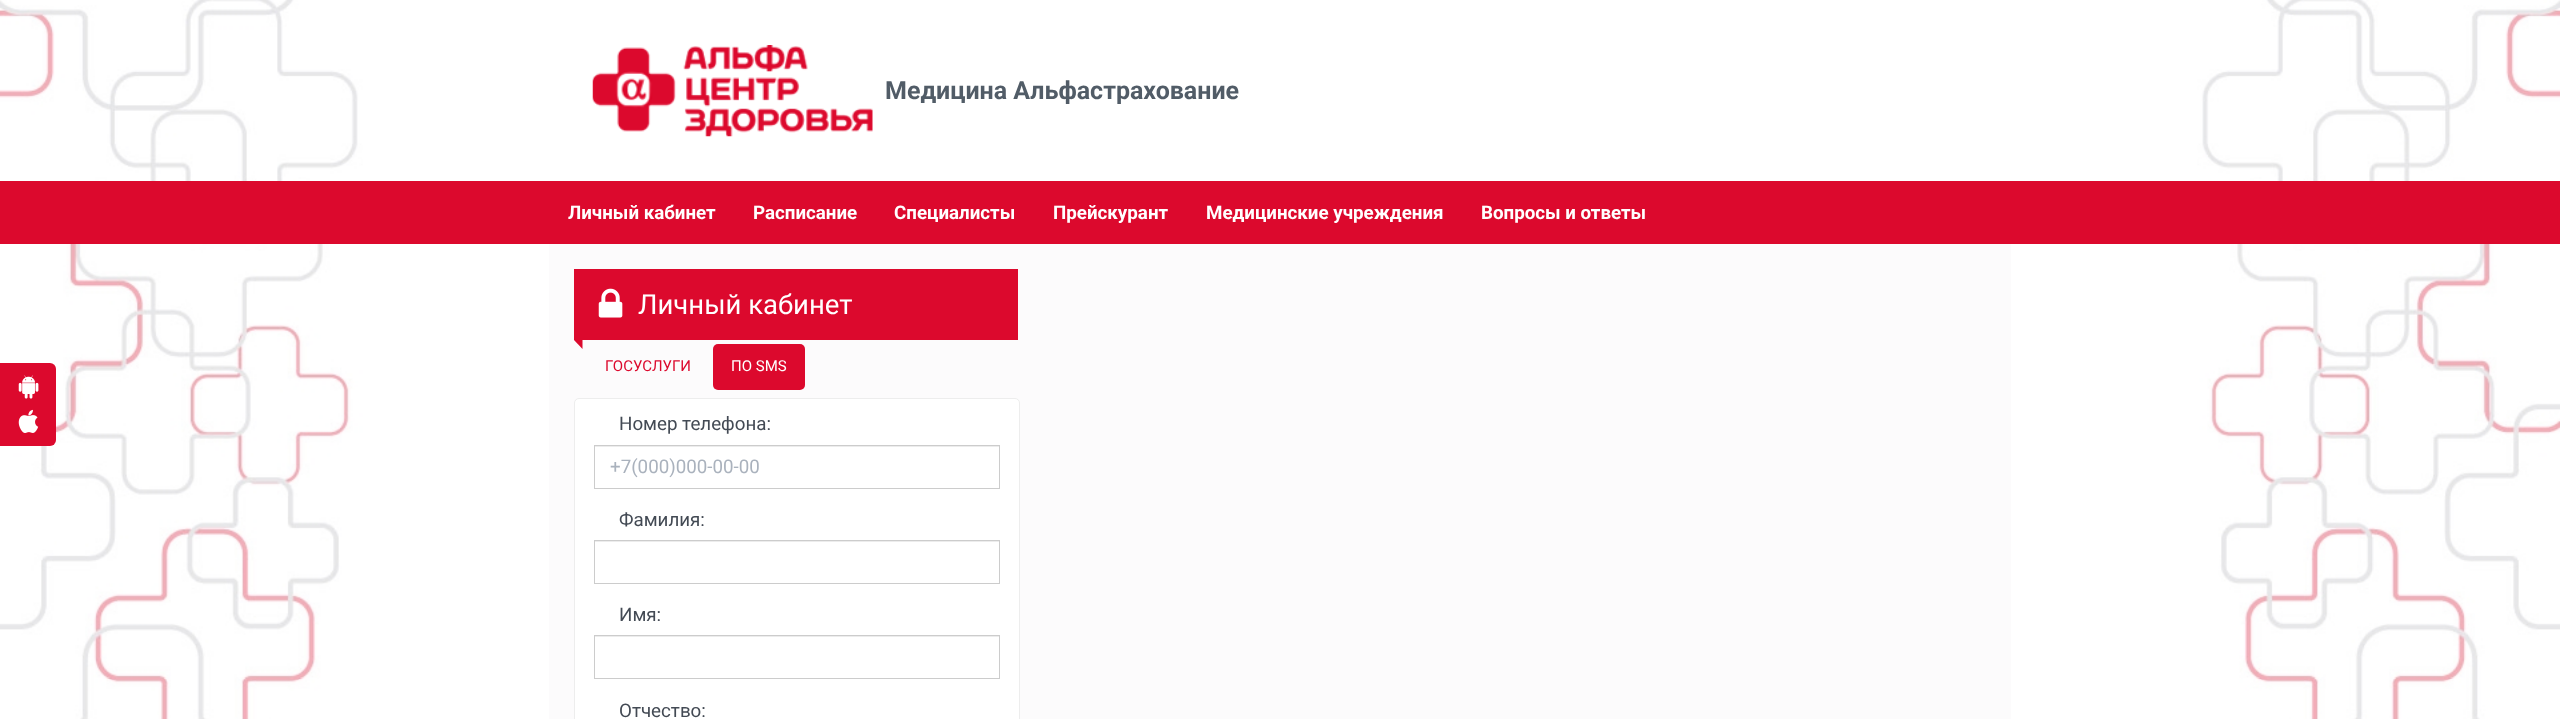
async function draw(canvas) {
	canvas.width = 2560;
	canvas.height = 719;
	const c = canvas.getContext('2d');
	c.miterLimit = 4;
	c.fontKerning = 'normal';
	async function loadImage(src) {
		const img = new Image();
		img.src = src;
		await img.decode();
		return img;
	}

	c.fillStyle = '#fff';
	c.fillRect(0, 0, 2560, 719);
	c.drawImage(await loadImage('img1.png'), 0, 0, 2560, 719);
	c.fillStyle = '#dc092d';
	c.beginPath();
	c.roundRect(0, 363, 56, 83, [0, 6, 6, 0]);
	c.fill();
	c.drawImage(await loadImage('img2.png'), 18, 375, 21, 24);
	c.drawImage(await loadImage('img3.png'), 18, 409, 21, 24);
	c.drawImage(await loadImage('img4.png'), 592, 45, 281, 92);
	c.font = 'bold 25px Roboto';
	c.fillStyle = '#515c67';
	c.fillText('Медицина Альфастрахование', 885, 99);
	c.fillStyle = '#dc092d';
	c.fillRect(0, 181, 2560, 63);
	c.font = 'bold 18.75px Roboto';
	c.fillStyle = '#fff';
	for (const [text, x, y] of [
		['Личный кабинет', 568, 219],
		['Расписание', 753, 219],
		['Специалисты', 894, 219],
		['Прейскурант', 1053, 219],
		['Медицинские учреждения', 1206, 219],
		['Вопросы и ответы', 1481, 219],
	]) {
		c.fillText(text, x, y);
	}
	c.fillStyle = '#fcfbfc';
	c.fillRect(549, 244, 1462, 475);
	c.fillStyle = '#dc092d';
	c.fillRect(574, 269, 444, 71);
	c.drawImage(await loadImage('img5.png'), 598, 288, 25, 30);
	c.font = '27.5px Roboto';
	c.fillStyle = '#fff';
	c.fillText('Личный кабинет', 638, 314);
	c.fillStyle = '#dc092d';
	c.beginPath();
	c.moveTo(574, 340);
	c.lineTo(582.5, 340);
	c.lineTo(582.5, 349);
	c.closePath();
	c.fill();
	c.font = '15px Roboto';
	c.fillText('ГОСУСЛУГИ', 605, 371);
	c.beginPath();
	c.roundRect(713, 344, 92, 46, 5);
	c.fill();
	c.fillStyle = '#fff';
	c.fillText('ПО SMS', 731, 371);
	c.beginPath();
	c.roundRect(574.5, 398.5, 445, 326, 4.5);
	c.fill();
	c.strokeStyle = '#ededed';
	c.stroke();
	c.font = '18.75px Roboto';
	c.fillStyle = '#434a54';
	c.fillText('Номер телефона:', 619, 430);
	c.fillStyle = '#ececec';
	c.fillRect(595, 446, 404, 1);
	c.strokeStyle = '#ccc';
	c.strokeRect(594.5, 445.5, 405, 43);
	c.fillStyle = '#aab2bd';
	c.fillText('+7(000)000-00-00', 610, 473);
	c.fillStyle = '#434a54';
	c.fillText('Фамилия:', 619, 526);
	c.fillStyle = '#ececec';
	c.fillRect(595, 541, 404, 1);
	c.strokeRect(594.5, 540.5, 405, 43);
	c.fillStyle = '#434a54';
	c.fillText('Имя:', 619, 621);
	c.fillStyle = '#ececec';
	c.fillRect(595, 636, 404, 1);
	c.strokeRect(594.5, 635.5, 405, 43);
	c.fillStyle = '#434a54';
	c.fillText('Отчество:', 619, 717);
}

draw(document.querySelector('canvas'));
